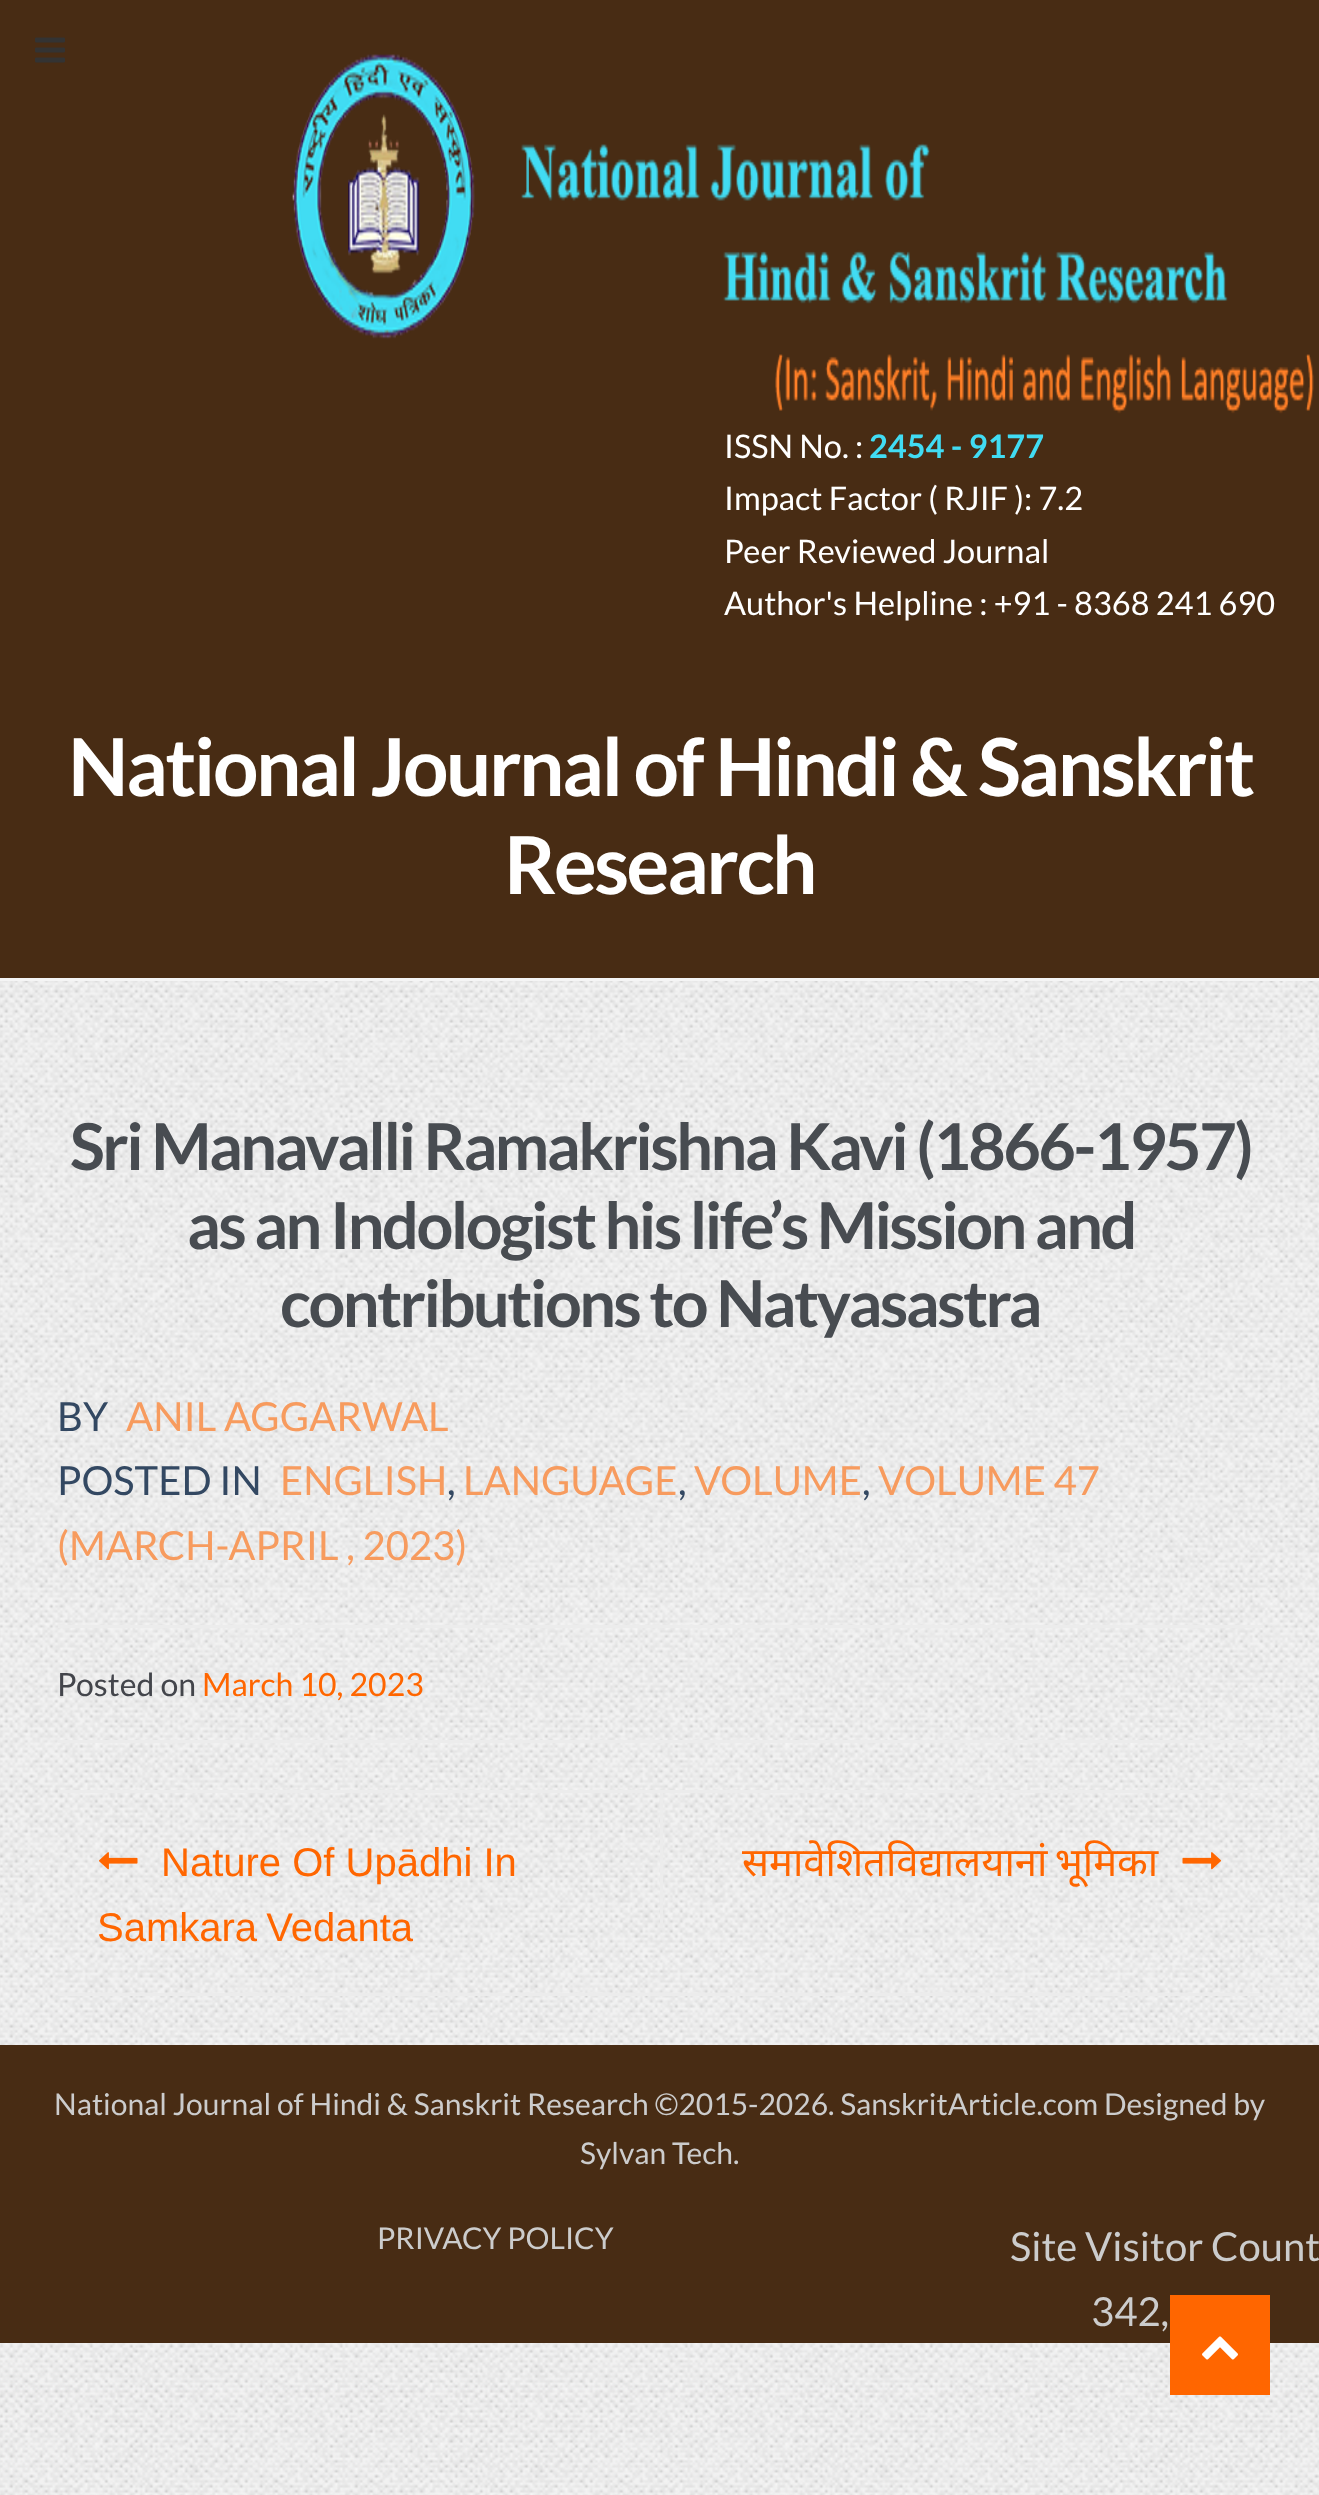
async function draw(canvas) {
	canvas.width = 1319;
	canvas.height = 2495;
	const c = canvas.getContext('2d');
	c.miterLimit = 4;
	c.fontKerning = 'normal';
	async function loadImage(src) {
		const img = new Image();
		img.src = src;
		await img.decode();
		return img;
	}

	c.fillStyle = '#fff';
	c.fillRect(0, 0, 1319, 2495);
	c.drawImage(await loadImage('img1.png'), 0, 981, 1319, 1514);
	c.fillStyle = '#482c14';
	c.fillRect(0, 0, 1319, 978);
	c.drawImage(await loadImage('img2.png'), 292, 54, 1022, 360);
	c.font = '32.5px Lato';
	c.fillStyle = '#fff';
	c.fillText('ISSN No. :', 724, 458);
	c.font = 'bold 32.5px Lato';
	c.fillStyle = '#41dcf3';
	c.fillText('2454 - 9177', 869, 458);
	c.font = '32.5px Lato';
	c.fillStyle = '#fff';
	for (const [text, x, y] of [
		['Impact Factor ( RJIF ): 7.2', 724, 510],
		['Peer Reviewed Journal', 724, 563],
		['Author\'s Helpline : +91 - 8368 241 690', 724, 615],
	]) {
		c.fillText(text, x, y);
	}
	c.fillStyle = '#f5f5f5';
	c.fillRect(0, 978, 1319, 3);
	c.drawImage(await loadImage('img3.png'), 35, 37, 30, 26);
	c.letterSpacing = '-2.5px';
	c.font = 'bold 80px Lato';
	c.fillStyle = '#fff';
	c.fillText('National Journal of Hindi & Sanskrit', 68, 796);
	c.fillText('Research', 504, 894);
	c.font = 'bold 64.75px Lato';
	c.fillStyle = '#484c51';
	for (const [text, x, y] of [
		['Sri Manavalli Ramakrishna Kavi (1866-1957)', 70, 1170],
		['as an Indologist his life’s Mission and', 187, 1249],
		['contributions to Natyasastra', 280, 1327],
	]) {
		c.fillText(text, x, y);
	}
	c.letterSpacing = '0px';
	c.font = '40px Lato';
	c.fillStyle = '#334862';
	c.fillText('BY', 57, 1431);
	c.fillStyle = '#f79b5e';
	c.fillText('ANIL AGGARWAL', 126, 1431);
	c.fillStyle = '#334862';
	c.fillText('POSTED IN', 57, 1495);
	c.fillStyle = '#f79b5e';
	c.fillText('ENGLISH', 280, 1495);
	c.fillStyle = '#334862';
	c.fillText(',', 447, 1495);
	c.fillStyle = '#f79b5e';
	c.fillText('LANGUAGE', 463, 1495);
	c.fillStyle = '#334862';
	c.fillText(',', 678, 1495);
	c.fillStyle = '#f79b5e';
	c.fillText('VOLUME', 694, 1495);
	c.fillStyle = '#334862';
	c.fillText(',', 862, 1495);
	c.fillStyle = '#f79b5e';
	c.fillText('VOLUME 47', 878, 1495);
	c.fillText('(MARCH-APRIL , 2023)', 57, 1560);
	c.fillStyle = '#ececec';
	c.fillRect(58, 1625, 1205, 3);
	c.fillRect(58, 1740, 1205, 3);
	c.font = '32px Lato';
	c.fillStyle = '#43454b';
	c.fillText('Posted on', 57, 1696);
	c.fillStyle = '#f60';
	c.fillText('March 10, 2023', 202, 1696);
	c.fillStyle = '#ececec';
	c.fillRect(58, 1790, 1205, 3);
	c.fillRect(58, 1993, 1205, 3);
	c.drawImage(await loadImage('img4.png'), 99, 1852, 39, 18);
	c.font = '40px Liberation Sans';
	c.fillStyle = '#f60';
	c.fillText('Nature Of Upādhi In', 161, 1876);
	c.wordSpacing = '-2px';
	c.fillText('Samkara Vedanta', 97, 1941);
	c.fillStyle = '#ececec';
	c.fillRect(660, 1793, 3, 135);
	c.wordSpacing = '-3px';
	c.font = '40px Noto Sans';
	c.fillStyle = '#f60';
	c.fillText('समावेशितविद्यालयानां भूमिका', 742, 1876);
	c.drawImage(await loadImage('img5.png'), 1182, 1852, 39, 18);
	c.fillStyle = '#482c14';
	c.fillRect(0, 2045, 1319, 298);
	c.wordSpacing = '0px';
	c.font = '30px Lato';
	c.fillStyle = '#ccc';
	for (const [text, x, y] of [
		['National Journal of Hindi & Sanskrit Research ©2015-2026. SanskritArticle.com Designed by', 54, 2115],
		['Sylvan Tech.', 580, 2164],
		['PRIVACY POLICY', 377, 2249],
	]) {
		c.fillText(text, x, y);
	}
	c.font = '40px Lato';
	c.fillText('Site Visitor Count', 1010, 2261);
	c.fillText('342,', 1091, 2326);
	c.fillStyle = '#f60';
	c.fillRect(1170, 2295, 100, 100);
	c.drawImage(await loadImage('img6.png'), 1202, 2336, 36, 24);
}

draw(document.querySelector('canvas'));
